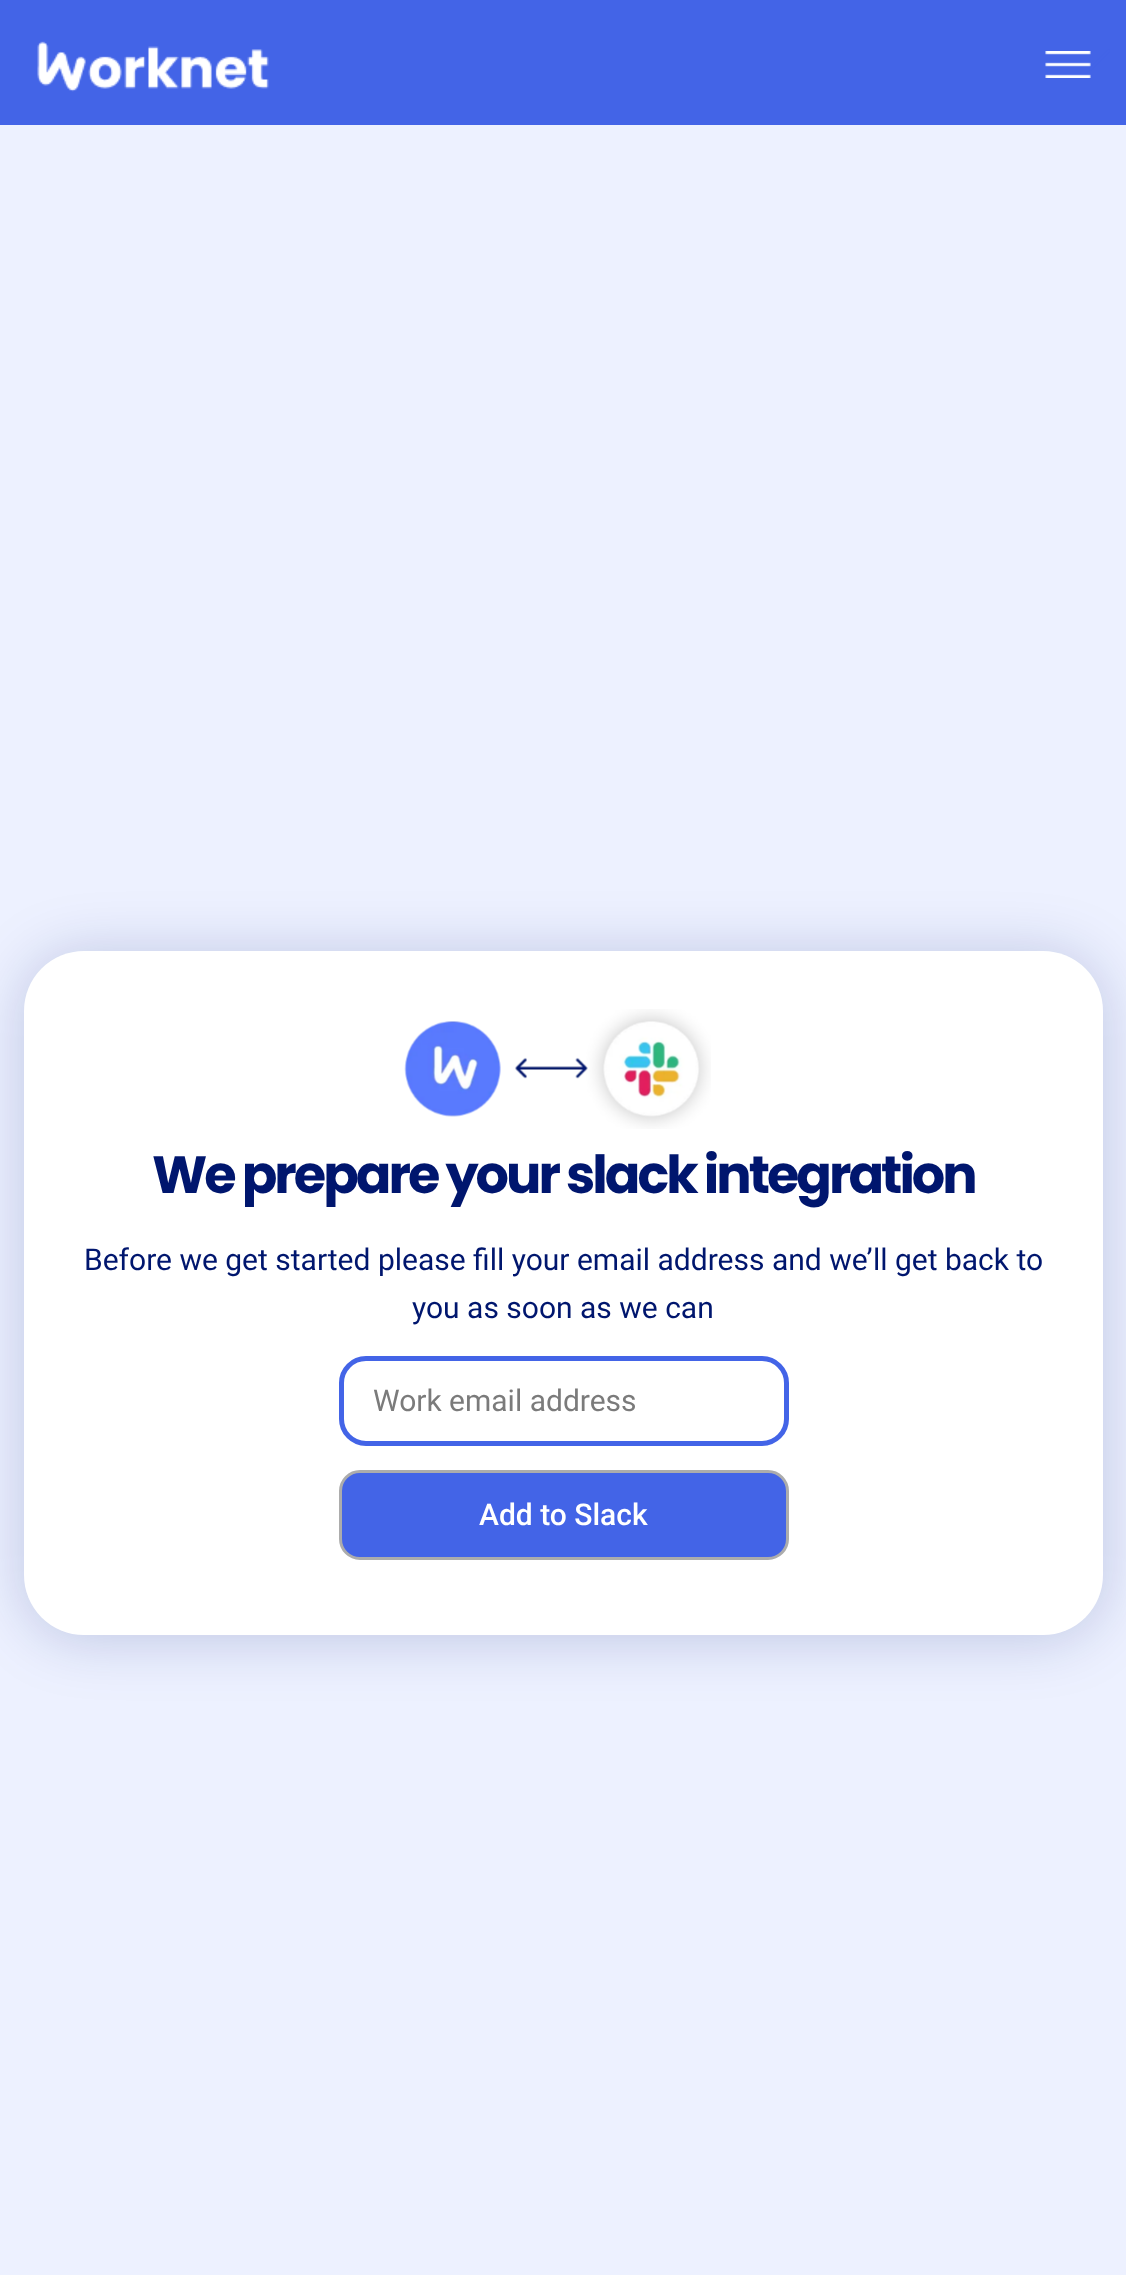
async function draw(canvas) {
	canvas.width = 1126;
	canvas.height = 2275;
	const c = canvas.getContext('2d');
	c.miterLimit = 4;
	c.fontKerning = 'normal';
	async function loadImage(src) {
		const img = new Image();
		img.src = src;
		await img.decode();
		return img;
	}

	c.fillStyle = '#edf1ff';
	c.fillRect(0, 0, 1126, 2275);
	c.fillStyle = '#4364e7';
	c.fillRect(0, 0, 1126, 125);
	c.drawImage(await loadImage('img1.png'), 37, 41, 232, 51);
	c.drawImage(await loadImage('img2.png'), 1045, 51, 46, 27);
	c.beginPath();
	c.moveTo(1108.5, 51);
	c.lineTo(1090.5, 69);
	c.strokeStyle = '#4364e7';
	c.lineWidth = 3;
	c.lineCap = 'round';
	c.lineJoin = 'round';
	c.stroke();
	c.fillStyle = '#00166e33';
	c.filter = 'blur(30px)';
	c.beginPath();
	c.roundRect(24, 954, 1079, 684, 60);
	c.fill();
	c.filter = 'none';
	c.fillStyle = '#fff';
	c.beginPath();
	c.roundRect(24, 951, 1079, 684, 60);
	c.fill();
	c.drawImage(await loadImage('img3.png'), 404, 1009, 307, 120);
	c.letterSpacing = '-3px';
	c.font = 'bold 52.5px Poppins';
	c.fillStyle = '#00166e';
	c.fillText('We prepare your slack integration', 152, 1193);
	c.letterSpacing = '0px';
	c.font = '30px Roboto';
	c.fillText('Before we get started please fill your email address and we’ll get back to', 84, 1270);
	c.fillText('you as soon as we can', 412, 1318);
	c.beginPath();
	c.roundRect(341.5, 1358.5, 445, 85, 24.5);
	c.lineWidth = 5;
	c.lineJoin = 'miter';
	c.stroke();
	c.fillStyle = '#7b7b7b';
	c.fillText('Work email address', 373, 1411);
	c.fillStyle = '#4364e7';
	c.beginPath();
	c.roundRect(340.5, 1471.5, 447, 87, 19.5);
	c.fill();
	c.strokeStyle = '#acacac';
	c.lineWidth = 3;
	c.stroke();
	c.font = '500 30px Roboto';
	c.fillStyle = '#fff';
	c.fillText('Add to Slack', 479, 1525);
}

draw(document.querySelector('canvas'));
